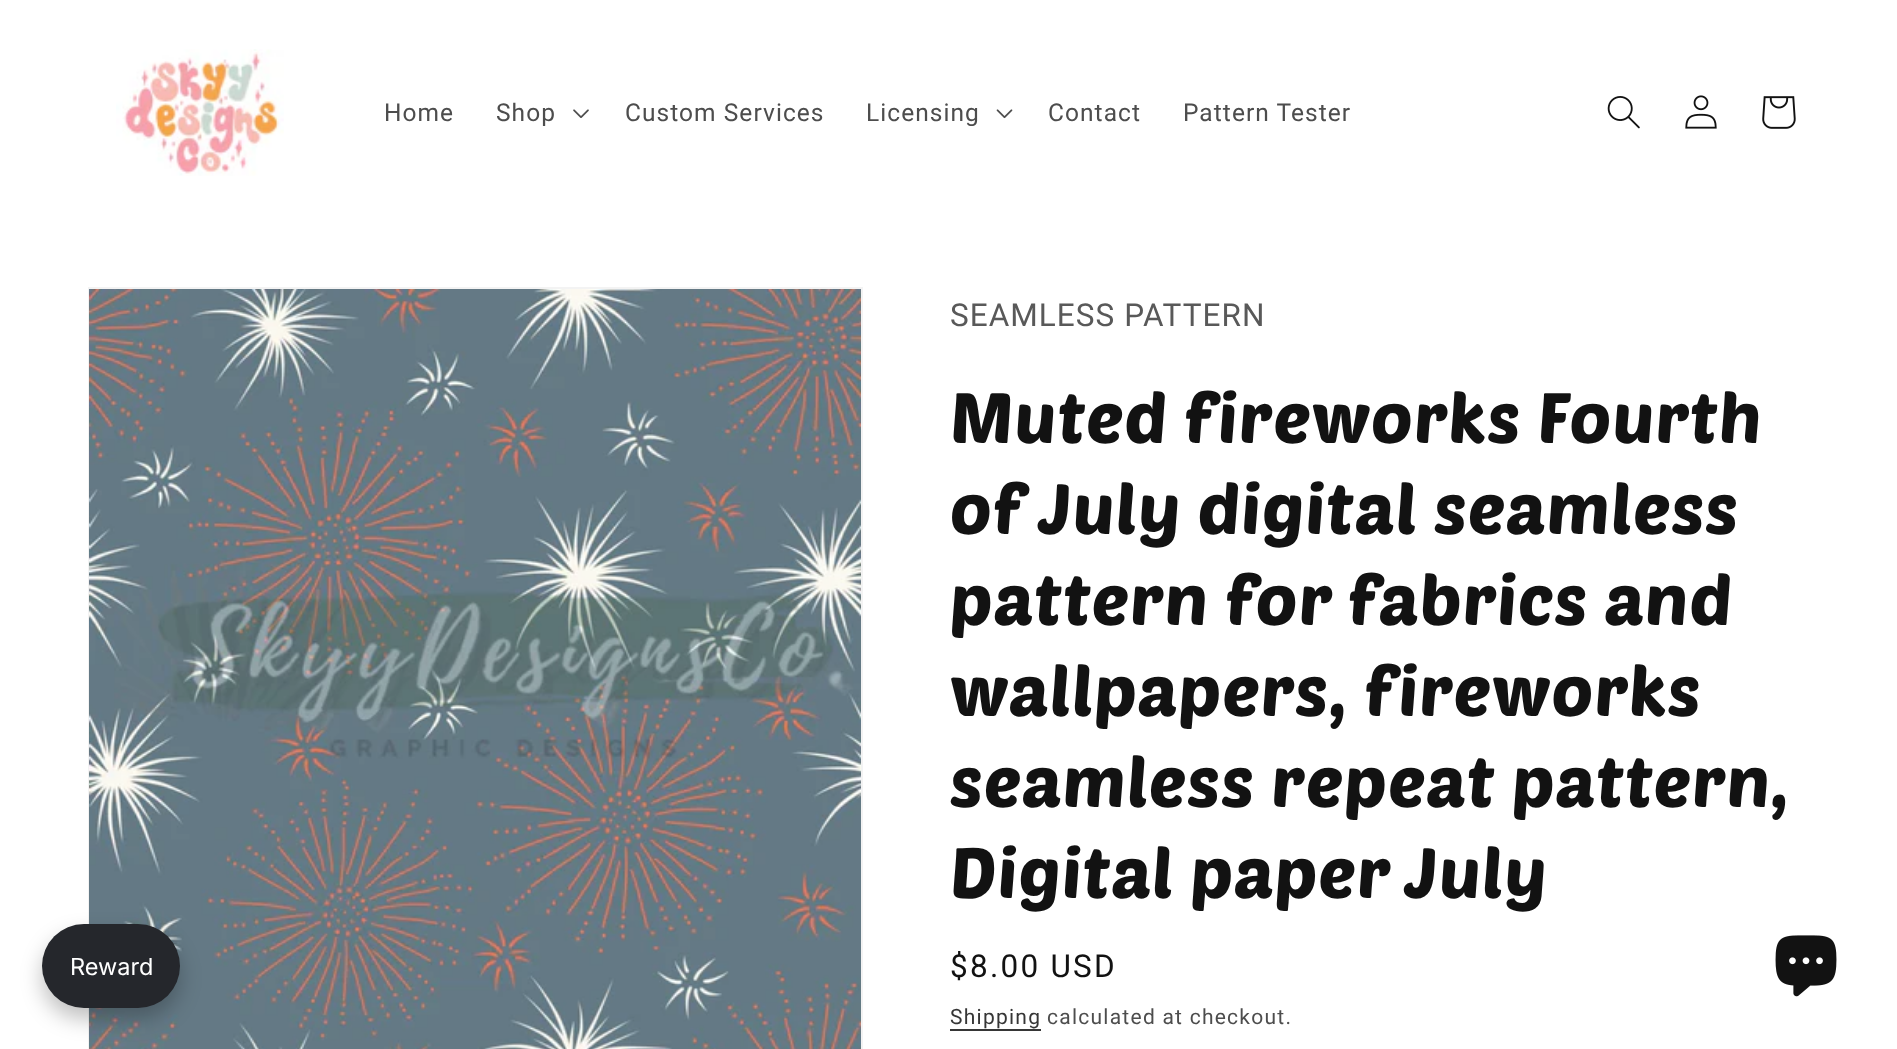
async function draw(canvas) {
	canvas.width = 1897;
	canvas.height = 1049;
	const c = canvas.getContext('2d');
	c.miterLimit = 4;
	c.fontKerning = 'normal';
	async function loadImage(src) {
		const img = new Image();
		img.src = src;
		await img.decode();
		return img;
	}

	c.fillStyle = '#fff';
	c.fillRect(0, 0, 1897, 1049);
	c.drawImage(await loadImage('img1.png'), 116, 49, 168, 127);
	c.letterSpacing = '1.05px';
	c.font = '24.5px Roboto';
	c.fillStyle = '#4d4d4d';
	c.fillText('Home', 384, 121);
	c.fillText('Shop', 496, 121);
	c.drawImage(await loadImage('img2.png'), 573, 109, 16, 9);
	c.fillText('Custom Services', 625, 121);
	c.fillText('Licensing', 866, 121);
	c.drawImage(await loadImage('img3.png'), 996, 109, 17, 10);
	c.fillText('Contact', 1048, 121);
	c.fillText('Pattern Tester', 1183, 121);
	c.drawImage(await loadImage('img4.png'), 1607, 96, 33, 33);
	c.drawImage(await loadImage('img5.png'), 1685, 95, 32, 34);
	c.drawImage(await loadImage('img6.png'), 1762, 96, 34, 33);
	c.strokeStyle = '#f3f3f3';
	c.lineWidth = 2;
	c.strokeRect(89, 288, 773, 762);
	c.drawImage(await loadImage('img7.png'), 89, 289, 772, 760);
	c.fillStyle = '#00000040';
	c.filter = 'blur(10.5px)';
	c.beginPath();
	c.roundRect(42, 935, 138, 84, 42);
	c.fill();
	c.filter = 'none';
	c.fillStyle = '#25272c';
	c.beginPath();
	c.roundRect(42, 924, 138, 84, 42);
	c.fill();
	c.letterSpacing = '0px';
	c.font = '23.5px Inter';
	c.fillStyle = '#fff';
	c.fillText('Reward', 70, 975);
	c.letterSpacing = '1.05px';
	c.font = '31.5px Roboto';
	c.fillStyle = '#595959';
	c.fillText('SEAMLESS PATTERN', 950, 326);
	c.font = '70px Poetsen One';
	c.fillStyle = '#121212';
	for (const [text, x, y] of [
		['Muted fireworks Fourth', 950, 443],
		['of July digital seamless', 950, 534],
		['pattern for fabrics and', 950, 625],
		['wallpapers, fireworks', 950, 716],
		['seamless repeat pattern,', 950, 807],
		['Digital paper July', 950, 898],
	]) {
		c.fillText(text, x, y);
	}
	c.letterSpacing = '2.25px';
	c.font = '31.5px Roboto';
	c.fillText('$8.00 USD', 950, 977);
	c.letterSpacing = '1.25px';
	c.font = '21px Roboto';
	c.fillStyle = '#363636';
	c.fillText('Shipping', 950, 1024);
	c.fillRect(950, 1029, 91, 2);
	c.fillStyle = '#4d4d4d';
	c.fillText('calculated at checkout.', 1047, 1024);
	c.drawImage(await loadImage('img8.png'), 1775, 935, 62, 62);
}

draw(document.querySelector('canvas'));
